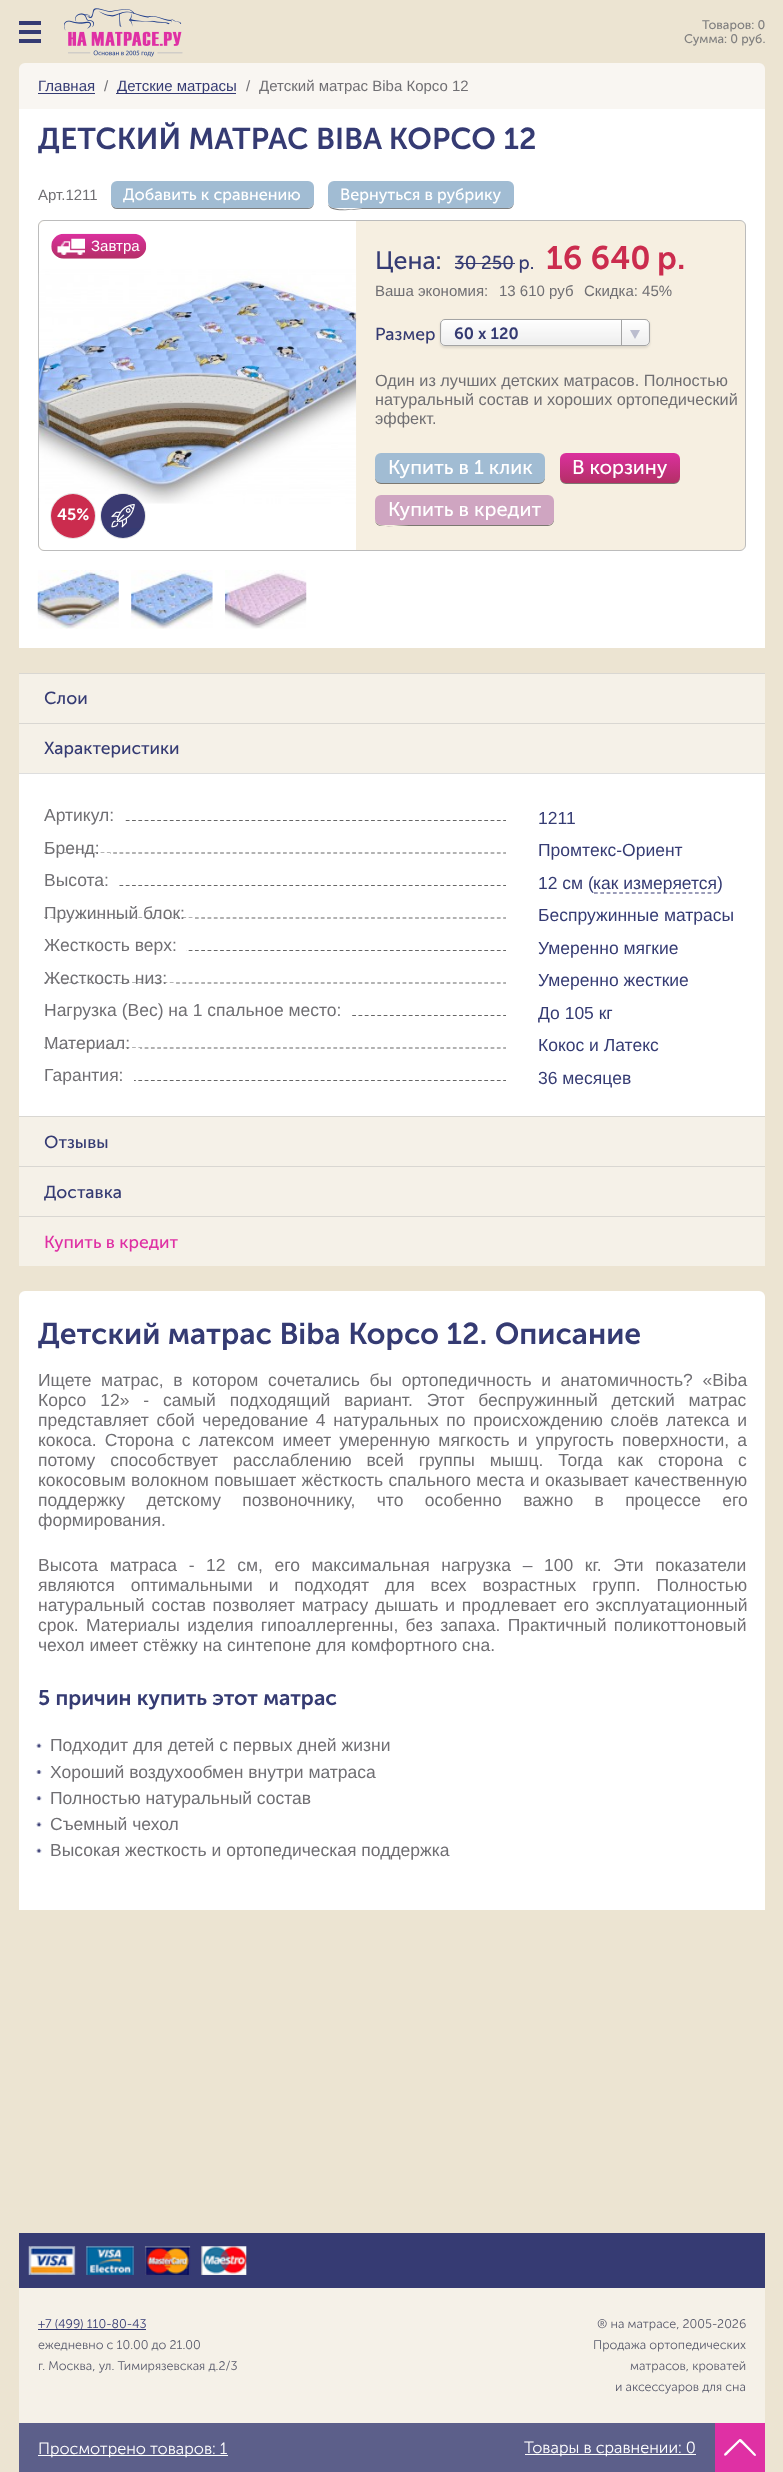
async function draw(canvas) {
	canvas.width = 783;
	canvas.height = 2472;
	const c = canvas.getContext('2d');
	c.miterLimit = 4;
	c.fontKerning = 'normal';
	async function loadImage(src) {
		const img = new Image();
		img.src = src;
		await img.decode();
		return img;
	}
	let gradient;

	c.fillStyle = '#ece4d2';
	c.fillRect(0, 0, 783, 2472);
	for (const [x, y, w, h, color] of [
		[19, 30, 22, 4, '#353b73'],
		[19, 21, 22, 4, '#353b73'],
		[19, 39, 22, 4, '#353b73'],
	]) {
		c.fillStyle = color;
		c.fillRect(x, y, w, h);
	}
	c.drawImage(await loadImage('img1.png'), 64, 8, 119, 49);
	c.font = '12.5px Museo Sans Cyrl';
	c.fillStyle = '#818080';
	c.fillText('Товаров: 0', 702, 29);
	c.fillText('Сумма: 0 руб.', 684, 43);
	c.fillStyle = '#f9f6f2';
	c.beginPath();
	c.roundRect(19, 63, 746, 46, [6, 6, 0, 0]);
	c.fill();
	c.font = '15px Liberation Sans';
	c.fillStyle = '#353b73';
	c.fillText('Главная', 38, 91);
	c.fillRect(38, 93, 57, 1);
	c.fillStyle = '#706f73';
	c.fillText('/', 104, 91);
	c.fillStyle = '#353b73';
	c.fillRect(116, 93, 120, 1);
	c.fillText('Детские матрасы', 117, 91);
	c.fillStyle = '#706f73';
	c.fillText('/', 246, 91);
	c.fillText('Детский матрас Biba Корсо 12', 259, 91);
	c.fillStyle = '#fff';
	c.fillRect(19, 109, 746, 539);
	c.font = '600 30px Museo Sans Cyrl';
	c.fillStyle = '#353b73';
	c.fillText('ДЕТСКИЙ МАТРАС BIBA КОРСО 12', 38, 149);
	c.font = '15px Liberation Sans';
	c.fillStyle = '#706f73';
	c.fillText('Арт.1211', 38, 200);
	c.fillStyle = '#808080';
	c.beginPath();
	c.moveTo(111, 187);
	c.lineTo(111, 198);
	c.bezierCurveTo(111, 203, 111, 209, 117, 209);
	c.lineTo(308, 209);
	c.bezierCurveTo(314, 209, 314, 203, 314, 198);
	c.lineTo(314, 187);
	c.lineTo(314, 197);
	c.bezierCurveTo(314, 201, 314, 207, 308, 208);
	c.lineTo(118, 208);
	c.bezierCurveTo(111, 207, 111, 201, 111, 197);
	c.closePath();
	c.fill();
	c.fillStyle = '#a1bcd3';
	c.beginPath();
	c.roundRect(111, 181, 203, 27, 6);
	c.fill();
	c.font = '16.25px Museo Sans Cyrl';
	c.fillStyle = '#fff';
	c.fillText('Добавить к сравнению', 123, 200);
	c.fillStyle = '#808080';
	c.beginPath();
	c.moveTo(328, 204);
	c.bezierCurveTo(329, 214, 354, 209, 363, 209);
	c.lineTo(508, 209);
	c.bezierCurveTo(514, 209, 514, 203, 514, 198);
	c.lineTo(514, 187);
	c.lineTo(514, 197);
	c.bezierCurveTo(514, 201, 514, 207, 508, 208);
	c.lineTo(363, 208);
	c.bezierCurveTo(361, 208, 332, 213, 328, 204);
	c.closePath();
	c.fill();
	c.fillStyle = '#a1bcd3';
	c.beginPath();
	c.roundRect(328, 181, 186, 27, 6);
	c.fill();
	c.fillStyle = '#fff';
	c.fillText('Вернуться в рубрику', 340, 200);
	c.fillStyle = '#f6efe1';
	c.beginPath();
	c.roundRect(38.5, 220.5, 707, 330, 5.5);
	c.fill();
	c.strokeStyle = '#bcbcbc';
	c.stroke();
	c.fillStyle = '#fff';
	c.beginPath();
	c.roundRect(39, 221, 317, 329, [6, 0, 0, 6]);
	c.fill();
	c.drawImage(await loadImage('img2.png'), 51, 233, 96, 26);
	c.font = '15px Liberation Sans';
	c.fillText('Завтра', 91, 251);
	c.drawImage(await loadImage('img3.png'), 38, 269, 319, 235);
	c.beginPath();
	c.arc(73, 516, 22.5, 0, 2 * Math.PI);
	c.strokeStyle = '#e5e5e5';
	c.stroke();
	c.fillStyle = '#cb2c4e';
	c.beginPath();
	c.arc(73, 516, 22, 0, 2 * Math.PI);
	c.fill();
	c.font = '600 16.25px Museo Sans Cyrl';
	c.fillStyle = '#fff';
	c.fillText('45%', 57, 520);
	c.beginPath();
	c.arc(123, 516, 22.5, 0, 2 * Math.PI);
	c.strokeStyle = '#0000001a';
	c.stroke();
	c.fillStyle = '#363b73';
	c.beginPath();
	c.arc(123, 516, 22, 0, 2 * Math.PI);
	c.fill();
	c.drawImage(await loadImage('img4.png'), 101, 494, 44, 34);
	c.font = '25px Museo Sans Cyrl';
	c.fillStyle = '#353b73';
	c.fillText('Цена:', 375, 269);
	c.font = '18.75px Museo Sans Cyrl';
	c.fillText('30 250 р.', 454, 269);
	c.fillStyle = '#363b73';
	c.fillRect(455, 263, 60, 1);
	c.font = '600 32.5px Museo Sans Cyrl';
	c.fillStyle = '#cb2c4e';
	c.fillText('16 640', 546, 269);
	c.fillText('р.', 657, 269);
	c.font = '15px Liberation Sans';
	c.fillStyle = '#706f73';
	for (const [text, x, y] of [
		['Ваша экономия:', 375, 296],
		['13 610 руб', 499, 296],
		['Скидка: 45%', 584, 296],
	]) {
		c.fillText(text, x, y);
	}
	c.font = '17.5px Museo Sans Cyrl';
	c.fillStyle = '#353b73';
	c.fillText('Размер', 375, 340);
	c.fillStyle = '#0000001a';
	c.filter = 'blur(1px)';
	c.beginPath();
	c.roundRect(440, 320, 210, 28, 5);
	c.fill();
	c.filter = 'none';
	c.drawImage(await loadImage('img5.png'), 440, 320, 210, 26);
	c.fillStyle = '#f1f1f1';
	c.beginPath();
	c.moveTo(644, 345);
	c.bezierCurveTo(649, 345, 649, 342.5, 649, 338);
	c.lineTo(649, 327);
	c.bezierCurveTo(649, 322.5, 649, 320, 644, 320);
	c.bezierCurveTo(646, 320, 648, 322, 648, 324);
	c.lineTo(648, 341);
	c.bezierCurveTo(648, 343, 646, 345, 644, 345);
	c.closePath();
	c.fill();
	c.beginPath();
	c.moveTo(442, 321);
	c.bezierCurveTo(441, 322, 441, 323, 441, 324);
	c.lineTo(441, 341);
	c.bezierCurveTo(441, 343, 443, 345, 445, 345);
	c.lineTo(645, 345);
	c.bezierCurveTo(646, 345, 648, 344, 648, 343);
	c.lineTo(647, 344);
	c.lineTo(446, 344);
	c.bezierCurveTo(441, 344, 442, 337, 442, 334);
	c.closePath();
	c.fill();
	c.beginPath();
	c.roundRect(440.5, 319.5, 209, 26, 4.5);
	c.strokeStyle = '#a4a4a4';
	c.stroke();
	c.font = '600 16.25px Museo Sans Cyrl';
	c.fillStyle = '#353b73';
	c.fillText('60 х 120', 454, 339);
	c.fillStyle = '#a4a4a4';
	c.fillRect(621, 319, 1, 27);
	c.fillStyle = '#363b734d';
	c.beginPath();
	c.moveTo(630, 330);
	c.lineTo(640, 330);
	c.lineTo(635, 339);
	c.closePath();
	c.fill();
	c.font = '16.25px Liberation Sans';
	c.fillStyle = '#706f73';
	for (const [text, x, y] of [
		['Один из лучших детских матрасов. Полностью', 375, 386],
		['натуральный состав и хороших ортопедический', 375, 405],
		['эффект.', 375, 424],
	]) {
		c.fillText(text, x, y);
	}
	c.fillStyle = '#7b7871';
	c.beginPath();
	c.moveTo(375, 476);
	c.lineTo(375, 478);
	c.bezierCurveTo(375, 481, 378, 484, 381, 484);
	c.lineTo(539, 484);
	c.bezierCurveTo(542, 484, 545, 481, 545, 478);
	c.lineTo(545, 476);
	c.bezierCurveTo(545, 480, 542, 482, 539, 482);
	c.lineTo(381, 482);
	c.bezierCurveTo(378, 482, 375, 480, 375, 476);
	c.closePath();
	c.fill();
	c.fillStyle = '#a1bcd3';
	c.beginPath();
	c.roundRect(375, 453, 170, 30, 6);
	c.fill();
	c.font = '20px Museo Sans Cyrl';
	c.fillStyle = '#fff';
	c.fillText('Купить в 1 клик', 388, 474);
	c.fillStyle = '#7b7871';
	c.beginPath();
	c.moveTo(560, 476);
	c.lineTo(560, 478);
	c.bezierCurveTo(560, 481, 563, 484, 566, 484);
	c.lineTo(674, 484);
	c.bezierCurveTo(677, 484, 680, 481, 680, 478);
	c.lineTo(680, 476);
	c.bezierCurveTo(680, 480, 677, 482, 674, 482);
	c.lineTo(566, 482);
	c.bezierCurveTo(563, 482, 560, 480, 560, 476);
	c.closePath();
	c.fill();
	gradient = c.createLinearGradient(620, 483, 620, 453);
	gradient.addColorStop(0, '#b42f66');
	gradient.addColorStop(1, '#db309e');
	c.fillStyle = gradient;
	c.beginPath();
	c.roundRect(560, 453, 120, 30, 6);
	c.fill();
	c.fillStyle = '#fff';
	c.fillText('В корзину', 572, 474);
	c.fillStyle = '#7b7871';
	c.beginPath();
	c.moveTo(375, 519);
	c.lineTo(375, 520);
	c.bezierCurveTo(375, 523, 378, 526, 381, 526);
	c.lineTo(548, 526);
	c.bezierCurveTo(551, 526, 554, 523, 554, 520);
	c.lineTo(554, 502);
	c.lineTo(554, 500);
	c.lineTo(554, 513);
	c.bezierCurveTo(554, 518, 554, 525, 548, 525);
	c.lineTo(409, 525);
	c.bezierCurveTo(397, 525, 375, 530, 375, 519);
	c.closePath();
	c.fill();
	c.fillStyle = '#cfa5c1';
	c.beginPath();
	c.roundRect(375, 495, 179, 30, 6);
	c.fill();
	c.fillStyle = '#fff';
	c.fillText('Купить в кредит', 388, 516);
	c.drawImage(await loadImage('img6.png'), 37, 570, 82, 59);
	c.drawImage(await loadImage('img7.png'), 131, 570, 82, 59);
	c.drawImage(await loadImage('img8.png'), 225, 570, 82, 59);
	for (const [x, y, w, h, color] of [
		[19, 774, 746, 342, '#fff'],
		[19, 674, 746, 49, '#f5f1e8'],
		[19, 673, 746, 1, '#d9d7d2'],
	]) {
		c.fillStyle = color;
		c.fillRect(x, y, w, h);
	}
	c.font = '17.5px Museo Sans Cyrl';
	c.fillStyle = '#353b73';
	c.fillText('Слои', 44, 704);
	c.fillStyle = '#f5f1e8';
	c.fillRect(19, 724, 746, 49);
	c.fillStyle = '#d9d7d2';
	c.fillRect(19, 723, 746, 1);
	c.fillStyle = '#353b73';
	c.fillText('Характеристики', 44, 754);
	c.fillStyle = '#dedede';
	c.fillRect(19, 773, 746, 1);
	c.beginPath();
	c.moveTo(44, 820.5);
	c.lineTo(506, 820.5);
	c.strokeStyle = '#666';
	c.lineWidth = 1.2;
	c.setLineDash([3.75, 2.54]);
	c.stroke();
	c.fillStyle = '#fff';
	c.fillRect(44, 820, 80, 2);
	c.font = '17.5px Liberation Sans';
	c.fillStyle = '#706f73';
	c.fillText('Артикул:', 44, 821);
	c.fillStyle = '#353b73';
	c.fillText('1211', 538, 824);
	c.beginPath();
	c.moveTo(44, 853);
	c.lineTo(506, 853);
	c.stroke();
	c.fillStyle = '#fff';
	c.fillRect(44, 853, 66, 1);
	c.fillStyle = '#706f73';
	c.fillText('Бренд:', 44, 854);
	c.fillStyle = '#353b73';
	c.fillText('Промтекс-Ориент', 538, 856);
	c.beginPath();
	c.moveTo(44, 885.5);
	c.lineTo(506, 885.5);
	c.stroke();
	c.fillStyle = '#fff';
	c.fillRect(44, 885, 75, 2);
	c.fillStyle = '#706f73';
	c.fillText('Высота:', 44, 886);
	c.fillStyle = '#353b73';
	c.fillText('12 см (', 538, 889);
	c.beginPath();
	c.moveTo(594, 893);
	c.lineTo(717.5, 893);
	c.strokeStyle = '#363b73';
	c.setLineDash([3.75, 2.56]);
	c.stroke();
	c.fillText('как измеряется', 593, 889);
	c.fillText(')', 717, 889);
	c.beginPath();
	c.moveTo(44, 918);
	c.lineTo(506, 918);
	c.strokeStyle = '#666';
	c.setLineDash([3.75, 2.54]);
	c.stroke();
	c.fillStyle = '#fff';
	c.fillRect(44, 918, 151, 1);
	c.fillStyle = '#706f73';
	c.fillText('Пружинный блок:', 44, 919);
	c.fillStyle = '#353b73';
	c.fillText('Беспружинные матрасы', 538, 921);
	c.beginPath();
	c.moveTo(44, 950.5);
	c.lineTo(506, 950.5);
	c.stroke();
	c.fillStyle = '#fff';
	c.fillRect(44, 950, 142, 2);
	c.fillStyle = '#706f73';
	c.fillText('Жесткость верх:', 44, 951);
	c.fillStyle = '#353b73';
	c.fillText('Умеренно мягкие', 538, 954);
	c.beginPath();
	c.moveTo(44, 983);
	c.lineTo(506, 983);
	c.stroke();
	c.fillStyle = '#fff';
	c.fillRect(44, 983, 132, 1);
	c.fillStyle = '#706f73';
	c.fillText('Жесткость низ:', 44, 984);
	c.fillStyle = '#353b73';
	c.fillText('Умеренно жесткие', 538, 986);
	c.beginPath();
	c.moveTo(44, 1015.5);
	c.lineTo(506, 1015.5);
	c.stroke();
	c.fillStyle = '#fff';
	c.fillRect(44, 1015, 307, 2);
	c.fillStyle = '#706f73';
	c.fillText('Нагрузка (Вес) на 1 спальное место:', 44, 1016);
	c.fillStyle = '#353b73';
	c.fillText('До 105 кг', 538, 1019);
	c.beginPath();
	c.moveTo(44, 1048);
	c.lineTo(506, 1048);
	c.stroke();
	c.fillStyle = '#fff';
	c.fillRect(44, 1048, 96, 1);
	c.fillStyle = '#706f73';
	c.fillText('Материал:', 44, 1049);
	c.fillStyle = '#353b73';
	c.fillText('Кокос и Латекс', 538, 1051);
	c.beginPath();
	c.moveTo(44, 1080.5);
	c.lineTo(506, 1080.5);
	c.stroke();
	c.fillStyle = '#fff';
	c.fillRect(44, 1080, 90, 2);
	c.fillStyle = '#706f73';
	c.fillText('Гарантия:', 44, 1081);
	c.fillStyle = '#353b73';
	c.fillText('36 месяцев', 538, 1084);
	c.fillStyle = '#f5f1e8';
	c.fillRect(19, 1117, 746, 49);
	c.fillStyle = '#d9d7d2';
	c.fillRect(19, 1116, 746, 1);
	c.font = '17.5px Museo Sans Cyrl';
	c.fillStyle = '#353b73';
	c.fillText('Отзывы', 44, 1148);
	c.fillStyle = '#f5f1e8';
	c.fillRect(19, 1167, 746, 49);
	c.fillStyle = '#d9d7d2';
	c.fillRect(19, 1166, 746, 1);
	c.fillStyle = '#353b73';
	c.fillText('Доставка', 44, 1198);
	c.fillStyle = '#f5f1e8';
	c.fillRect(19, 1217, 746, 49);
	c.fillStyle = '#d9d7d2';
	c.fillRect(19, 1216, 746, 1);
	c.fillStyle = '#df30a4';
	c.fillText('Купить в кредит', 44, 1248);
	c.fillStyle = '#fff';
	c.beginPath();
	c.roundRect(19, 1291, 746, 619, [6, 6, 0, 0]);
	c.fill();
	c.font = '600 30px Museo Sans Cyrl';
	c.fillStyle = '#353b73';
	c.fillText('Детский матрас Biba Корсо 12. Описание', 38, 1344);
	c.wordSpacing = '4.75px';
	c.font = '17.5px Liberation Sans';
	c.fillStyle = '#706f73';
	c.fillText('Ищете матрас, в котором сочетались бы ортопедичность и анатомичность? «Biba', 38, 1386);
	c.wordSpacing = '9px';
	c.fillText('Корсо 12» - самый подходящий вариант. Этот беспружинный детский матрас', 38, 1406);
	c.wordSpacing = '2.75px';
	c.fillText('представляет сбой чередование 4 натуральных по происхождению слоёв латекса и', 38, 1426);
	c.wordSpacing = '3.25px';
	c.fillText('кокоса. Сторона с латексом имеет умеренную мягкость и упругость поверхности, а', 38, 1446);
	c.wordSpacing = '10px';
	c.fillText('потому способствует расслаблению всей группы мышц. Тогда как сторона с', 38, 1466);
	c.wordSpacing = '0.5px';
	c.fillText('кокосовым волокном повышает жёсткость спального места и оказывает качественную', 38, 1486);
	c.wordSpacing = '16.5px';
	c.fillText('поддержку детскому позвоночнику, что особенно важно в процессе его', 38, 1506);
	c.wordSpacing = '0px';
	c.fillText('формирования.', 38, 1526);
	c.wordSpacing = '6.75px';
	c.fillText('Высота матраса - 12 см, его максимальная нагрузка – 100 кг. Эти показатели', 38, 1571);
	c.wordSpacing = '11px';
	c.fillText('являются оптимальными и подходят для всех возрастных групп. Полностью', 38, 1591);
	c.wordSpacing = '2px';
	c.fillText('натуральный состав позволяет матрасу дышать и продлевает его эксплуатационный', 38, 1611);
	c.wordSpacing = '2.5px';
	c.fillText('срок. Материалы изделия гипоаллергенны, без запаха. Практичный поликоттоновый', 38, 1631);
	c.wordSpacing = '0px';
	c.fillText('чехол имеет стёжку на синтепоне для комфортного сна.', 38, 1651);
	c.font = '600 21.25px Museo Sans Cyrl';
	c.fillStyle = '#353b73';
	c.fillText('5 причин купить этот матрас', 38, 1705);
	c.drawImage(await loadImage('img9.png'), 36, 1743, 6, 5);
	c.font = '17.5px Liberation Sans';
	c.fillStyle = '#706f73';
	c.fillText('Подходит для детей с первых дней жизни', 50, 1751);
	c.drawImage(await loadImage('img10.png'), 36, 1770, 6, 4);
	c.fillText('Хороший воздухообмен внутри матраса', 50, 1778);
	c.drawImage(await loadImage('img11.png'), 36, 1796, 6, 5);
	c.fillText('Полностью натуральный состав', 50, 1804);
	c.drawImage(await loadImage('img12.png'), 36, 1822, 6, 5);
	c.fillText('Съемный чехол', 50, 1830);
	c.drawImage(await loadImage('img9.png'), 36, 1848, 6, 5);
	c.fillText('Высокая жесткость и ортопедическая поддержка', 50, 1856);
	c.fillStyle = '#363b73';
	c.fillRect(19, 2233, 746, 55);
	c.drawImage(await loadImage('img13.png'), 28, 2246, 219, 29);
	c.fillStyle = '#f5f1e8';
	c.fillRect(19, 2288, 746, 135);
	c.fillStyle = '#353b73';
	c.fillRect(38, 2329, 108, 1);
	c.font = '300 12.5px Museo Sans Cyrl';
	c.fillText('+7 (499) 110-80-43', 38, 2328);
	c.fillStyle = '#585a6b';
	for (const [text, x, y] of [
		['ежедневно с 10.00 до 21.00', 38, 2349],
		['г. Москва, ул. Тимирязевская д.2/3', 38, 2370],
		['® на матрасе, 2005-2026', 597, 2328],
		['Продажа ортопедических', 593, 2349],
		['матрасов, кроватей', 630, 2370],
		['и аксессуаров для сна', 615, 2391],
	]) {
		c.fillText(text, x, y);
	}
	c.fillStyle = '#5c5f8a';
	c.fillRect(19, 2423, 696, 49);
	c.fillStyle = '#fff';
	c.fillRect(38, 2455, 190, 1);
	c.font = '300 16.25px Museo Sans Cyrl';
	c.fillText('Просмотрено товаров: 1', 38, 2454);
	c.fillRect(525, 2454, 171, 1);
	c.fillText('Товары в сравнении: 0', 524, 2453);
	c.fillStyle = '#df30a4';
	c.fillRect(715, 2423, 50, 49);
	c.fillStyle = '#fff';
	c.beginPath();
	c.moveTo(724.5, 2453.5);
	c.lineTo(739, 2439.5);
	c.lineTo(740, 2439);
	c.bezierCurveTo(742.5, 2439.5, 739.5, 2442, 738, 2443.5);
	c.lineTo(728.5, 2453);
	c.bezierCurveTo(728, 2453.5, 726, 2456.5, 724.5, 2455.5);
	c.bezierCurveTo(724, 2455, 724, 2454, 724.5, 2453.5);
	c.closePath();
	c.fill();
	c.beginPath();
	c.moveTo(741.5, 2439.5);
	c.lineTo(755.5, 2454);
	c.lineTo(756, 2455);
	c.bezierCurveTo(755.5, 2457.5, 753, 2454.5, 751.5, 2453);
	c.lineTo(742, 2443.5);
	c.bezierCurveTo(741.5, 2443, 738.5, 2441, 739.5, 2439.5);
	c.bezierCurveTo(740, 2439, 741, 2439, 741.5, 2439.5);
	c.closePath();
	c.fill();
}

draw(document.querySelector('canvas'));
